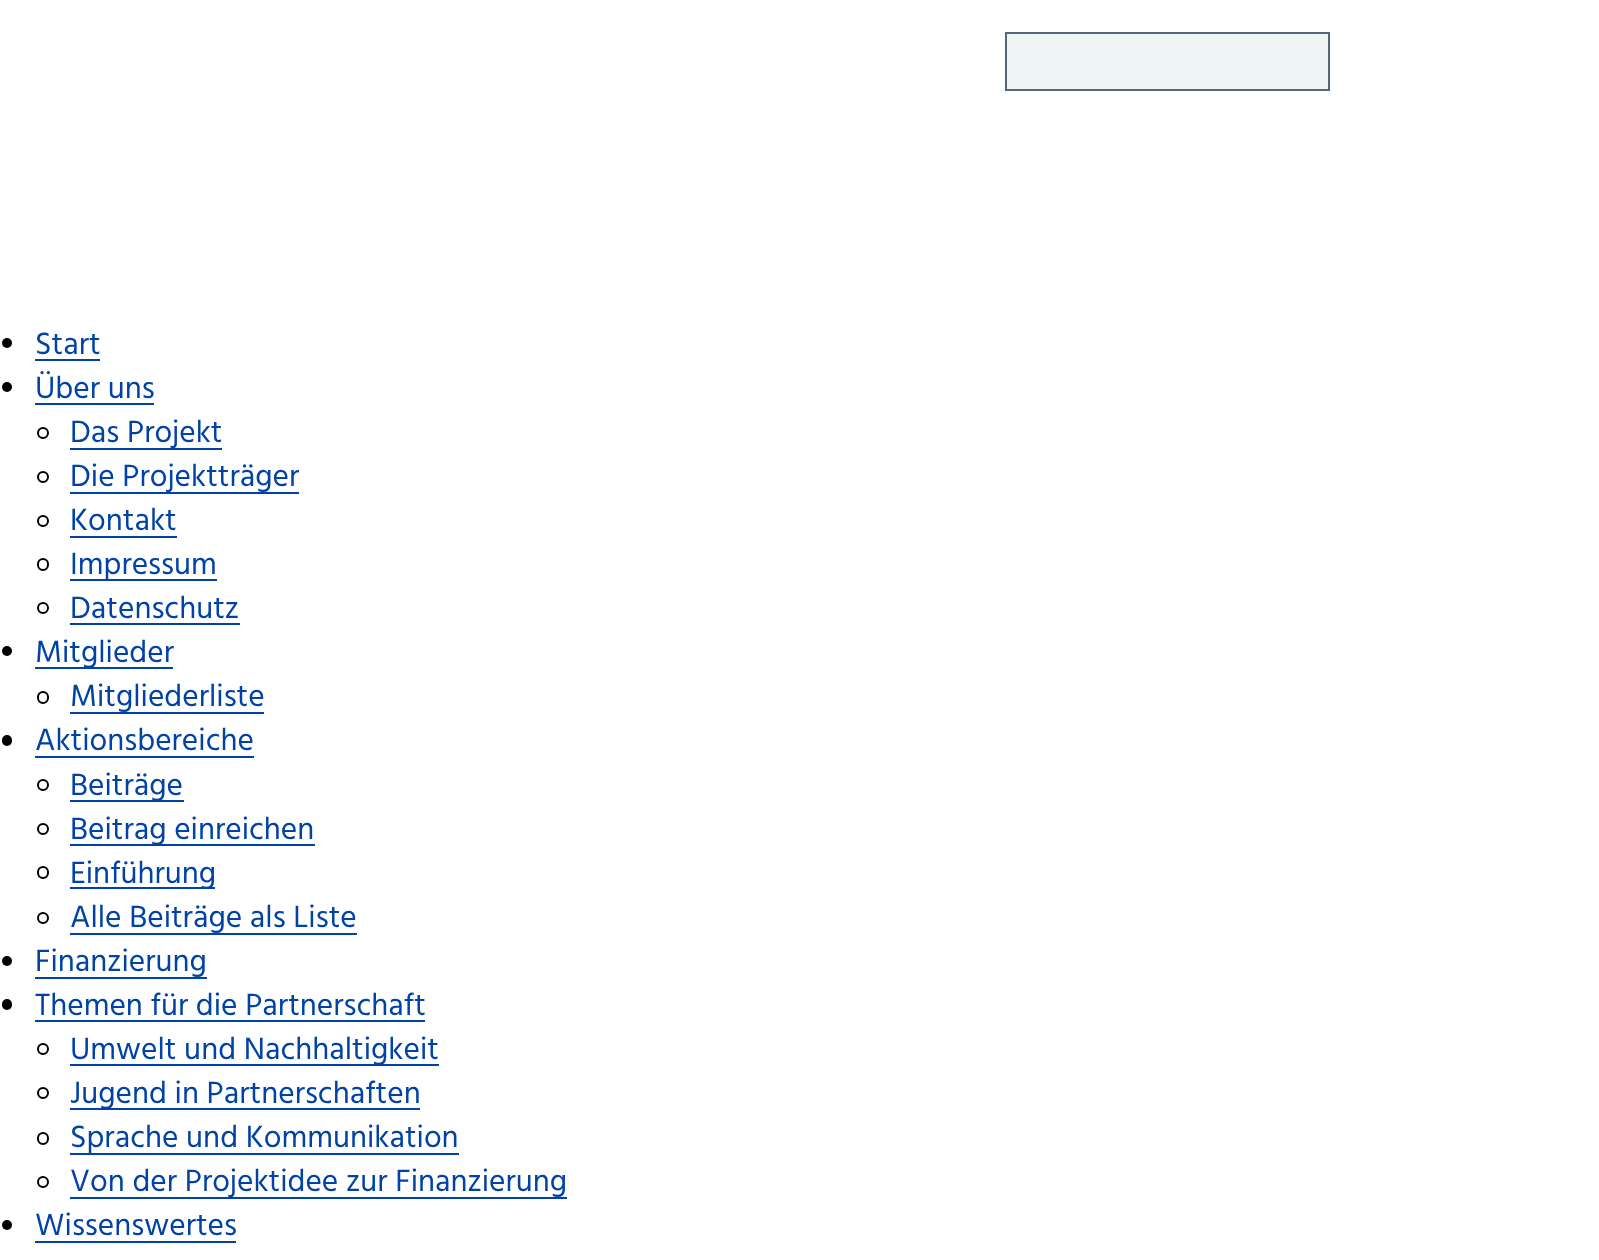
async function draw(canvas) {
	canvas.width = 1599;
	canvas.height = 1260;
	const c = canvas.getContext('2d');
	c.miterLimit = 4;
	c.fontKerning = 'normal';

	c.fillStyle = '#fff';
	c.fillRect(0, 0, 1599, 1260);
	c.fillStyle = '#f0f5f5';
	c.beginPath();
	c.rect(1006, 33, 323, 57);
	c.fill();
	c.strokeStyle = '#567';
	c.lineWidth = 2;
	c.stroke();
	c.fillStyle = '#000';
	c.beginPath();
	c.arc(7, 343, 5, 0, 2 * Math.PI);
	c.fill();
	c.font = '31.5px Hind';
	c.fillStyle = '#0042a6';
	c.fillText('Start', 35, 354);
	c.fillRect(35, 359, 65, 2);
	c.fillStyle = '#000';
	c.beginPath();
	c.arc(7, 387, 5, 0, 2 * Math.PI);
	c.fill();
	c.fillStyle = '#0042a6';
	c.fillText('Über uns', 35, 398);
	c.fillRect(35, 403, 119, 2);
	c.beginPath();
	c.arc(43, 433, 5, 0, 2 * Math.PI);
	c.strokeStyle = '#000';
	c.stroke();
	c.fillRect(70, 448, 152, 2);
	c.fillText('Das Projekt', 70, 442);
	c.beginPath();
	c.arc(43, 477, 5, 0, 2 * Math.PI);
	c.stroke();
	c.fillRect(70, 492, 229, 2);
	c.fillText('Die Projektträger', 70, 486);
	c.beginPath();
	c.arc(43, 521, 5, 0, 2 * Math.PI);
	c.stroke();
	c.fillText('Kontakt', 70, 530);
	c.fillRect(70, 536, 107, 2);
	c.beginPath();
	c.roundRect(38, 559, 10, 11, 5);
	c.stroke();
	c.fillRect(70, 579, 147, 2);
	c.fillText('Impressum', 70, 574);
	c.beginPath();
	c.arc(43, 608, 5, 0, 2 * Math.PI);
	c.stroke();
	c.fillText('Datenschutz', 70, 618);
	c.fillRect(70, 623, 170, 2);
	c.fillStyle = '#000';
	c.beginPath();
	c.arc(7, 651, 5, 0, 2 * Math.PI);
	c.fill();
	c.fillStyle = '#0042a6';
	c.fillRect(35, 667, 138, 2);
	c.fillText('Mitglieder', 35, 662);
	c.beginPath();
	c.roundRect(38, 692, 10, 11, 5);
	c.stroke();
	c.fillRect(70, 712, 194, 2);
	c.fillText('Mitgliederliste', 70, 706);
	c.fillStyle = '#000';
	c.beginPath();
	c.roundRect(2, 735, 10, 11, 5);
	c.fill();
	c.fillStyle = '#0042a6';
	c.fillText('Aktionsbereiche', 35, 750);
	c.fillRect(35, 756, 219, 2);
	c.beginPath();
	c.arc(43, 785, 5, 0, 2 * Math.PI);
	c.stroke();
	c.fillRect(70, 800, 114, 2);
	c.fillText('Beiträge', 70, 795);
	c.beginPath();
	c.arc(43, 829, 5, 0, 2 * Math.PI);
	c.stroke();
	c.fillRect(70, 844, 245, 2);
	c.fillText('Beitrag einreichen', 70, 839);
	c.beginPath();
	c.roundRect(38, 867, 10, 11, 5);
	c.stroke();
	c.fillRect(70, 887, 145, 2);
	c.fillText('Einführung', 70, 883);
	c.beginPath();
	c.arc(43, 918, 5, 0, 2 * Math.PI);
	c.stroke();
	c.fillRect(70, 933, 287, 2);
	c.fillText('Alle Beiträge als Liste', 70, 927);
	c.fillStyle = '#000';
	c.beginPath();
	c.arc(7, 961, 5, 0, 2 * Math.PI);
	c.fill();
	c.fillStyle = '#0042a6';
	c.fillRect(35, 977, 172, 2);
	c.fillText('Finanzierung', 35, 971);
	c.fillStyle = '#000';
	c.beginPath();
	c.roundRect(2, 999, 10, 11, 5);
	c.fill();
	c.fillStyle = '#0042a6';
	c.fillText('Themen für die Partnerschaft', 35, 1015);
	c.fillRect(35, 1020, 390, 2);
	c.beginPath();
	c.arc(43, 1049, 5, 0, 2 * Math.PI);
	c.stroke();
	c.fillRect(70, 1064, 369, 2);
	c.fillText('Umwelt und Nachhaltigkeit', 70, 1059);
	c.beginPath();
	c.arc(43, 1093, 5, 0, 2 * Math.PI);
	c.stroke();
	c.fillRect(70, 1108, 350, 2);
	c.fillText('Jugend in Partnerschaften', 70, 1103);
	c.beginPath();
	c.roundRect(38, 1133, 10, 11, 5);
	c.stroke();
	c.fillRect(70, 1153, 389, 2);
	c.fillText('Sprache und Kommunikation', 70, 1147);
	c.beginPath();
	c.arc(43, 1182, 5, 0, 2 * Math.PI);
	c.stroke();
	c.fillRect(70, 1197, 497, 2);
	c.fillText('Von der Projektidee zur Finanzierung', 70, 1191);
	c.fillStyle = '#000';
	c.beginPath();
	c.arc(7, 1225, 5, 0, 2 * Math.PI);
	c.fill();
	c.fillStyle = '#0042a6';
	c.fillText('Wissenswertes', 35, 1235);
	c.fillRect(35, 1241, 201, 2);
}

draw(document.querySelector('canvas'));
